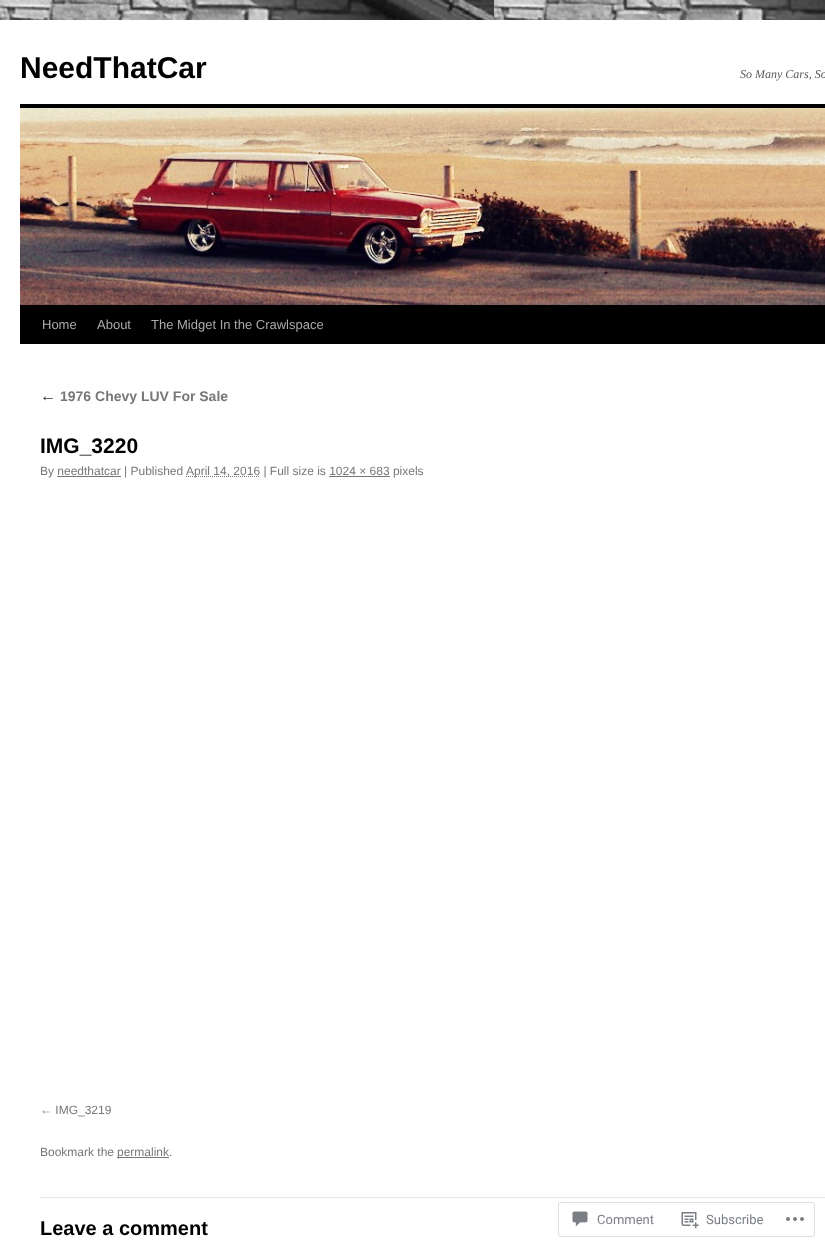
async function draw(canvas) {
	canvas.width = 825;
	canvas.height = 1247;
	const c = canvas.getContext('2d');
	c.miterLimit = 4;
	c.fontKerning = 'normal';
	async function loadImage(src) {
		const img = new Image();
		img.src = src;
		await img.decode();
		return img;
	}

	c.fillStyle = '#fff';
	c.fillRect(0, 0, 825, 1247);
	c.drawImage(await loadImage('img1.png'), 0, 0, 825, 20);
	c.font = 'bold 30px Liberation Sans';
	c.fillStyle = '#000';
	c.fillText('NeedThatCar', 20, 78);
	c.font = 'italic 12px Liberation Serif';
	c.fillStyle = '#595959';
	c.fillText('So Many Cars, So', 740, 78);
	c.fillStyle = '#000';
	c.fillRect(20, 104, 805, 4);
	c.fillRect(20, 305, 805, 39);
	c.drawImage(await loadImage('img2.png'), 20, 108, 805, 197);
	c.font = '13px Liberation Sans';
	c.fillStyle = '#aaa';
	for (const [text, x, y] of [
		['Home', 42, 329],
		['About', 97, 329],
		['The Midget In the Crawlspace', 151, 329],
	]) {
		c.fillText(text, x, y);
	}
	c.font = 'italic 16px Liberation Serif';
	c.fillStyle = '#333';
	c.fillText('←', 40, 401);
	c.font = 'bold 14px Liberation Sans';
	c.fillStyle = '#777';
	c.fillText('1976 Chevy LUV For Sale', 60, 401);
	c.font = 'bold 21px Liberation Sans';
	c.fillStyle = '#000';
	c.fillText('IMG_3220', 40, 453);
	c.font = '12px Liberation Sans';
	c.fillStyle = '#777';
	c.fillText('By needthatcar | Published', 40, 475);
	c.beginPath();
	c.moveTo(186, 476.5);
	c.lineTo(260, 476.5);
	c.strokeStyle = '#777';
	c.setLineDash([1, 1]);
	c.stroke();
	c.fillText('April 14, 2016 | Full size is 1024 × 683 pixels', 186, 475);
	c.fillRect(57, 476, 64, 1);
	c.fillRect(329, 476, 61, 1);
	c.fillText('← IMG_3219', 40, 1114);
	c.fillText('Bookmark the', 40, 1156);
	c.fillRect(117, 1157, 52, 1);
	c.fillText('permalink.', 117, 1156);
	c.fillStyle = '#e7e7e7';
	c.fillRect(40, 1197, 785, 1);
	c.font = 'bold 20px Liberation Sans';
	c.fillStyle = '#000';
	c.fillText('Leave a comment', 40, 1235);
	c.beginPath();
	c.roundRect(558.5, 1202.5, 256, 34, 2.5);
	c.strokeStyle = '#dddddf';
	c.setLineDash([]);
	c.stroke();
	c.drawImage(await loadImage('img3.png'), 572, 1211, 16, 16);
	c.font = '13px Roboto';
	c.fillStyle = '#7b7f85';
	c.fillText('Comment', 597, 1224);
	c.drawImage(await loadImage('img4.png'), 681, 1212, 18, 17);
	c.fillText('Subscribe', 706, 1224);
	c.drawImage(await loadImage('img5.png'), 786, 1217, 18, 4);
}

draw(document.querySelector('canvas'));
